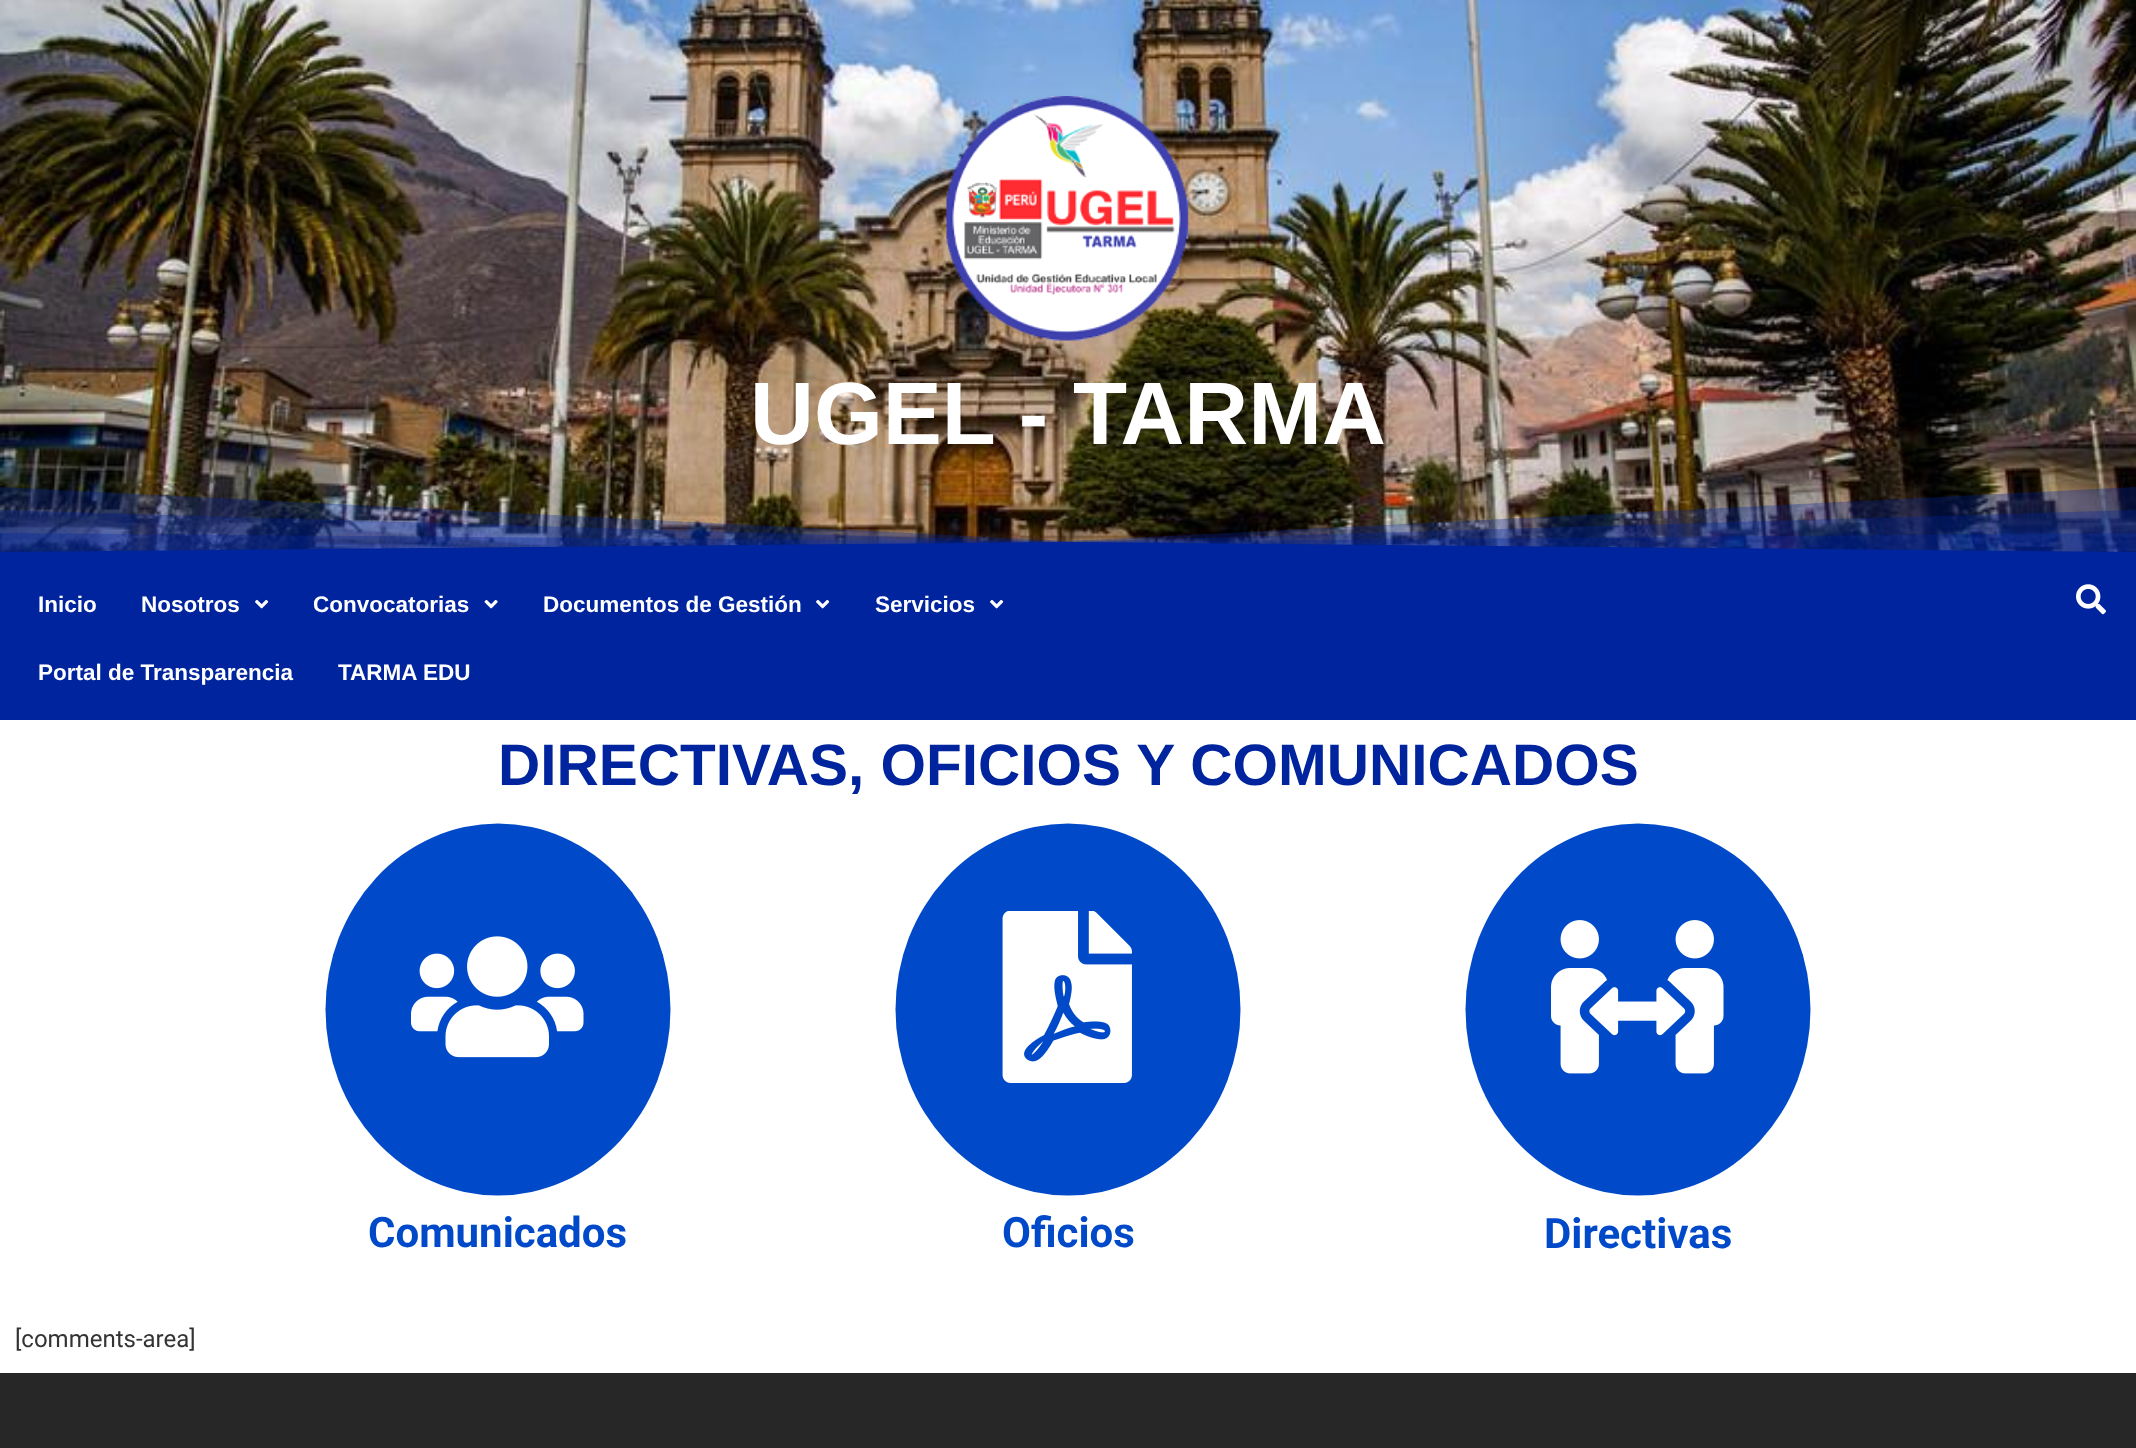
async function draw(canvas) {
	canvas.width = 2136;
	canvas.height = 1448;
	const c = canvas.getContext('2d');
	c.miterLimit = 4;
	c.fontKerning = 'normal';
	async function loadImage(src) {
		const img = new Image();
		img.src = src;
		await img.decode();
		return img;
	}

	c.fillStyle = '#fff';
	c.fillRect(0, 0, 2136, 1448);
	c.drawImage(await loadImage('img1.png'), 0, 0, 2136, 552);
	c.drawImage(await loadImage('img2.png'), 946, 96, 243, 245);
	c.font = 'bold 88.5px Liberation Sans';
	c.fillText('UGEL - TARMA', 750, 444);
	c.fillStyle = '#00249d54';
	c.beginPath();
	c.moveTo(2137, 556);
	c.lineTo(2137, 487);
	c.lineTo(1068, 541);
	c.lineTo(-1, 487);
	c.lineTo(-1, 556);
	c.closePath();
	c.fill();
	c.beginPath();
	c.moveTo(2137, 556);
	c.lineTo(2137, 510);
	c.lineTo(1068, 542);
	c.lineTo(-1, 510);
	c.lineTo(-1, 556);
	c.closePath();
	c.fill();
	c.beginPath();
	c.moveTo(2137, 556);
	c.lineTo(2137, 533);
	c.lineTo(1068, 542);
	c.lineTo(-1, 533);
	c.lineTo(-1, 556);
	c.closePath();
	c.fill();
	c.fillStyle = '#00249d';
	c.beginPath();
	c.moveTo(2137, 556);
	c.lineTo(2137, 552);
	c.lineTo(1068, 542);
	c.lineTo(-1, 552);
	c.lineTo(-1, 556);
	c.closePath();
	c.fill();
	c.fillRect(0, 556, 2136, 164);
	c.font = 'bold 22.5px Liberation Sans';
	c.fillStyle = '#fff';
	c.fillText('Inicio', 38, 612);
	c.fillText('Nosotros', 141, 612);
	c.drawImage(await loadImage('img3.png'), 255, 599, 14, 10);
	c.fillText('Convocatorias', 313, 612);
	c.drawImage(await loadImage('img4.png'), 484, 599, 14, 10);
	c.fillText('Documentos de Gestión', 543, 612);
	c.drawImage(await loadImage('img3.png'), 816, 599, 14, 10);
	c.fillText('Servicios', 875, 612);
	c.drawImage(await loadImage('img3.png'), 990, 599, 14, 10);
	c.fillText('Portal de Transparencia', 38, 680);
	c.fillText('TARMA EDU', 338, 680);
	c.drawImage(await loadImage('img5.png'), 2076, 584, 30, 31);
	c.font = 'bold 58.5px Liberation Sans';
	c.fillStyle = '#00249d';
	c.fillText('DIRECTIVAS, OFICIOS Y COMUNICADOS', 498, 785);
	c.fillStyle = '#004aca';
	c.beginPath();
	c.ellipse(498, 1009.5, 172.5, 186, 0, 0, 2 * Math.PI);
	c.fill();
	c.drawImage(await loadImage('img6.png'), 411, 936, 173, 122);
	c.font = 'bold 42px Roboto';
	c.fillText('Comunicados', 368, 1247);
	c.beginPath();
	c.ellipse(1068, 1009.5, 172.5, 186, 0, 0, 2 * Math.PI);
	c.fill();
	c.drawImage(await loadImage('img7.png'), 1002, 911, 130, 172);
	c.fillText('Oficios', 1002, 1247);
	c.beginPath();
	c.ellipse(1638, 1009.5, 172.5, 186, 0, 0, 2 * Math.PI);
	c.fill();
	c.drawImage(await loadImage('img8.png'), 1551, 920, 173, 154);
	c.fillText('Directivas', 1544, 1248);
	c.font = '24px Roboto';
	c.fillStyle = '#333';
	c.fillText('[comments-area]', 15, 1347);
	c.fillStyle = '#282727';
	c.fillRect(0, 1373, 2136, 75);
}

draw(document.querySelector('canvas'));
